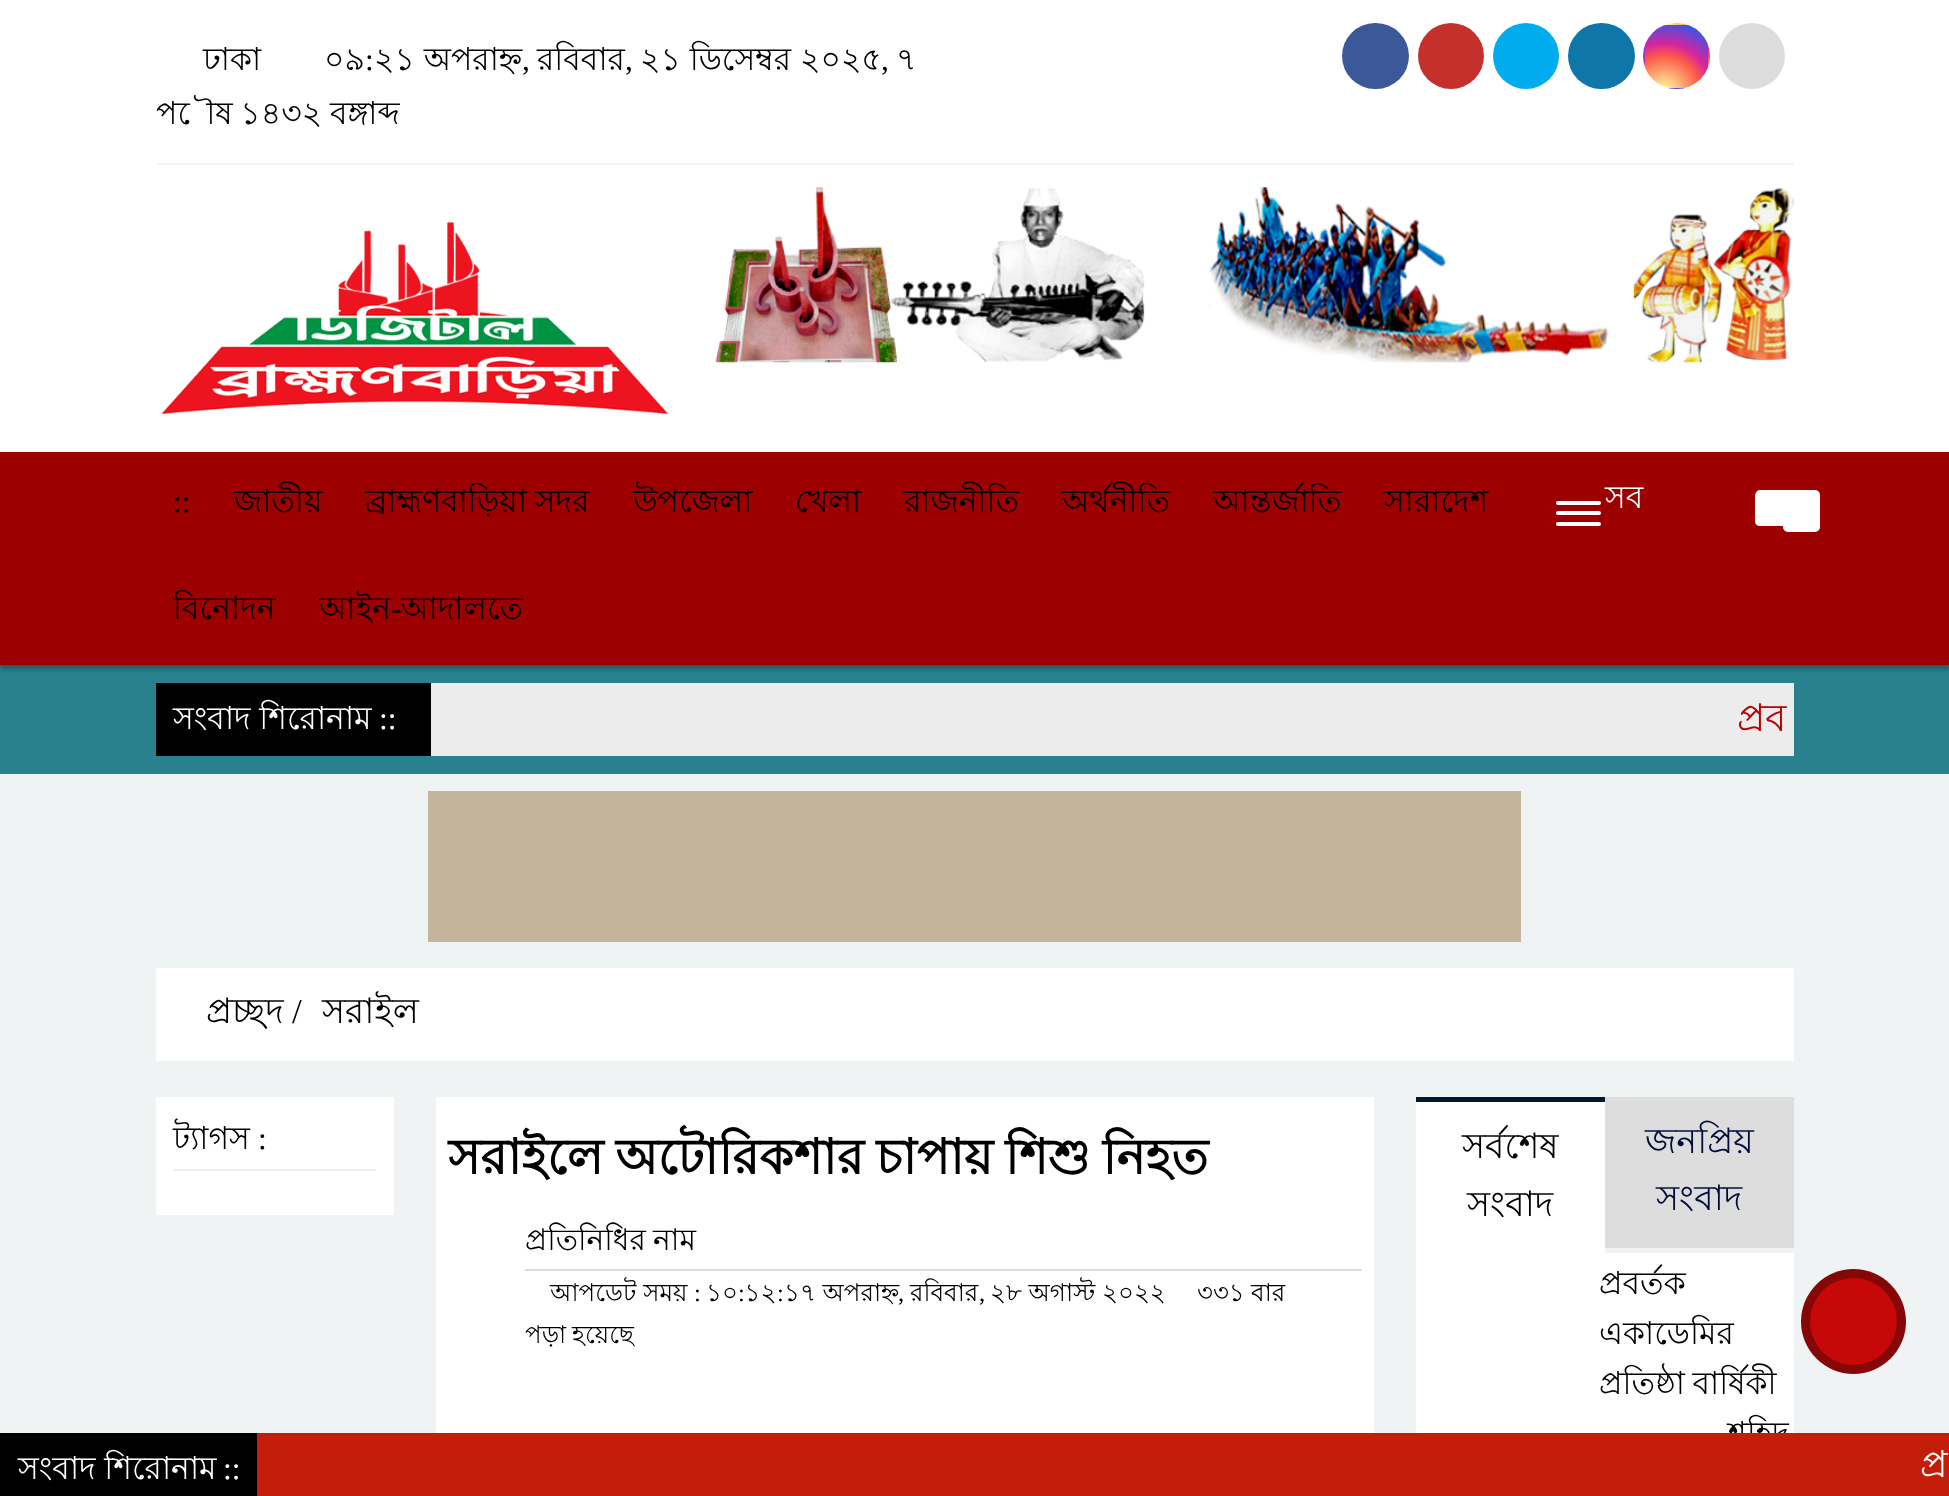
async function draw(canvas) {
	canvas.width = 1949;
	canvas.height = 1496;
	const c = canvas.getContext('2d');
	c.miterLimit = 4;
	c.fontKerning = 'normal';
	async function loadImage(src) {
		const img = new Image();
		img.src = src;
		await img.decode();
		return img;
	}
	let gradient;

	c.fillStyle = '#2a818e';
	c.fillRect(0, 0, 1949, 1496);
	c.fillStyle = '#fff';
	c.fillRect(0, 0, 1949, 452);
	c.fillStyle = '#f4f4f4';
	c.fillRect(156, 163, 1638, 2);
	c.font = '31.5px Lohit Bengali';
	c.fillStyle = '#000';
	c.fillText('ঢাকা', 203, 70);
	c.fillText('০৯', 324, 70);
	c.font = '31.5px Liberation Serif';
	c.fillText(':', 365, 70);
	c.font = '31.5px Lohit Bengali';
	c.fillText('২১ অপরাহ্ন', 374, 70);
	c.font = '31.5px Liberation Serif';
	c.fillText(',', 522, 70);
	c.font = '31.5px Lohit Bengali';
	c.fillText('রবিবার', 537, 70);
	c.font = '31.5px Liberation Serif';
	c.fillText(',', 625, 70);
	c.font = '31.5px Lohit Bengali';
	c.fillText('২১ ডিসেম্বর ২০২৫', 640, 70);
	c.font = '31.5px Liberation Serif';
	c.fillText(',', 881, 70);
	c.font = '31.5px Lohit Bengali';
	c.fillText('৭', 896, 70);
	c.wordSpacing = '-1px';
	c.fillText('পৌষ ১৪৩২ বঙ্গাব্দ', 156, 124);
	c.fillStyle = '#3b5998';
	c.beginPath();
	c.roundRect(1342, 23, 67, 66, 33);
	c.fill();
	c.fillStyle = '#c4302b';
	c.beginPath();
	c.arc(1451, 56, 33, 0, 2 * Math.PI);
	c.fill();
	c.fillStyle = '#00acee';
	c.beginPath();
	c.arc(1526, 56, 33, 0, 2 * Math.PI);
	c.fill();
	c.fillStyle = '#0e76a8';
	c.beginPath();
	c.roundRect(1568, 23, 67, 66, 33);
	c.fill();
	c.save();
	c.beginPath();
	c.roundRect(1643, 23, 67, 66, 33);
	c.clip();
	gradient = c.createRadialGradient(1664, 29, 0, 1664, 29, 81);
	gradient.addColorStop(0, '#fdf497');
	gradient.addColorStop(0.05, '#fdf497');
	gradient.addColorStop(0.45, '#fd5949');
	gradient.addColorStop(0.6, '#d6249f');
	gradient.addColorStop(0.9, '#285aeb');
	c.fillStyle = gradient;
	c.fillRect(1665, 23, 23, 2);
	gradient = c.createRadialGradient(1601, 92, 0, 1601, 92, 81);
	gradient.addColorStop(0, '#fdf497');
	gradient.addColorStop(0.05, '#fdf497');
	gradient.addColorStop(0.45, '#fd5949');
	gradient.addColorStop(0.6, '#d6249f');
	gradient.addColorStop(0.9, '#285aeb');
	c.fillStyle = gradient;
	c.fillRect(1643, 45, 2, 22);
	gradient = c.createRadialGradient(1664, 92, 0, 1664, 92, 81);
	gradient.addColorStop(0, '#fdf497');
	gradient.addColorStop(0.05, '#fdf497');
	gradient.addColorStop(0.45, '#fd5949');
	gradient.addColorStop(0.6, '#d6249f');
	gradient.addColorStop(0.9, '#285aeb');
	c.fillStyle = gradient;
	c.fillRect(1645, 25, 63, 63);
	gradient = c.createRadialGradient(1727, 92, 0, 1727, 92, 81);
	gradient.addColorStop(0, '#fdf497');
	gradient.addColorStop(0.05, '#fdf497');
	gradient.addColorStop(0.45, '#fd5949');
	gradient.addColorStop(0.6, '#d6249f');
	gradient.addColorStop(0.9, '#285aeb');
	c.fillStyle = gradient;
	c.fillRect(1708, 45, 2, 22);
	gradient = c.createRadialGradient(1664, 155, 0, 1664, 155, 81);
	gradient.addColorStop(0, '#fdf497');
	gradient.addColorStop(0.05, '#fdf497');
	gradient.addColorStop(0.45, '#fd5949');
	gradient.addColorStop(0.6, '#d6249f');
	gradient.addColorStop(0.9, '#285aeb');
	c.fillStyle = gradient;
	c.fillRect(1668, 88, 17, 1);
	c.restore();
	c.fillStyle = '#ddd';
	c.beginPath();
	c.arc(1752, 56, 33, 0, 2 * Math.PI);
	c.fill();
	c.drawImage(await loadImage('img1.png'), 161, 222, 508, 193);
	c.drawImage(await loadImage('img2.png'), 715, 187, 1079, 176);
	c.fillStyle = '#0000004d';
	c.filter = 'blur(2.5px)';
	c.beginPath();
	c.rect(0, 455, 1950, 214);
	c.fill();
	c.filter = 'none';
	c.fillStyle = '#9d0000';
	c.fillRect(0, 452, 1949, 213);
	c.wordSpacing = '0px';
	c.font = '31.5px Liberation Serif';
	c.fillStyle = '#000';
	c.fillText('::', 173, 512);
	c.font = '31.5px Lohit Bengali';
	c.fillText('জাতীয়', 234, 512);
	c.wordSpacing = '-1px';
	c.fillText('ব্রাহ্মণবাড়িয়া সদর', 365, 512);
	c.wordSpacing = '0px';
	for (const [text, x, y] of [
		['উপজেলা', 633, 512],
		['খেলা', 795, 512],
		['রাজনীতি', 904, 512],
		['অর্থনীতি', 1062, 512],
		['আন্তর্জাতি', 1213, 512],
		['সারাদেশ', 1384, 512],
		['বিনোদন', 173, 619],
		['আইন', 319, 619],
	]) {
		c.fillText(text, x, y);
	}
	c.font = '31.5px Liberation Serif';
	c.fillText('-', 391, 619);
	c.font = '31.5px Lohit Bengali';
	c.fillText('আদালতে', 401, 619);
	c.fillStyle = '#fff';
	c.fillText('সব', 1605, 508);
	c.beginPath();
	c.roundRect(1556, 501, 45, 4, 2);
	c.fill();
	c.beginPath();
	c.roundRect(1556, 511, 45, 4, 2);
	c.fill();
	c.beginPath();
	c.roundRect(1556, 522, 45, 4, 2);
	c.fill();
	c.beginPath();
	c.roundRect(1783, 490, 37, 42, 5);
	c.fill();
	c.beginPath();
	c.moveTo(1755, 521);
	c.lineTo(1755, 496);
	c.bezierCurveTo(1755, 493, 1757, 490, 1760, 490);
	c.lineTo(1791, 490);
	c.bezierCurveTo(1794, 490, 1797, 493, 1797, 496);
	c.lineTo(1797, 521);
	c.bezierCurveTo(1797, 524, 1794, 526, 1791, 526);
	c.lineTo(1760, 526);
	c.bezierCurveTo(1757, 526, 1755, 524, 1755, 521);
	c.closePath();
	c.fill();
	c.fillStyle = '#000';
	c.fillRect(156, 683, 275, 73);
	c.fillStyle = '#fff';
	c.fillText('সংবাদ শিরোনাম', 173, 729);
	c.font = '31.5px Liberation Serif';
	c.fillText('::', 379, 729);
	c.fillStyle = '#ececec';
	c.fillRect(431, 683, 1363, 73);
	c.wordSpacing = '-1px';
	c.font = '38px Lohit Bengali';
	c.fillStyle = '#b90101';
	c.fillText('প্রব', 1737, 731);
	for (const [x, y, w, h, color] of [
		[0, 774, 1949, 659, '#eff3f4'],
		[428, 791, 1093, 151, '#c3b59b'],
		[156, 968, 1638, 93, '#fff'],
	]) {
		c.fillStyle = color;
		c.fillRect(x, y, w, h);
	}
	c.wordSpacing = '0px';
	c.font = '35px Lohit Bengali';
	c.fillStyle = '#000';
	c.fillText('প্রচ্ছদ', 206, 1023);
	c.font = '35px Liberation Serif';
	c.fillText('/', 292, 1023);
	c.font = '35px Lohit Bengali';
	c.fillText('সরাইল', 322, 1023);
	c.fillStyle = '#fff';
	c.fillRect(156, 1097, 238, 118);
	c.fillStyle = '#eee';
	c.fillRect(173, 1169, 203, 2);
	c.font = '31.5px Lohit Bengali';
	c.fillStyle = '#000';
	c.fillText('ট্যাগস', 173, 1149);
	c.font = '31.5px Liberation Serif';
	c.fillText(':', 258, 1149);
	c.fillStyle = '#fff';
	c.fillRect(436, 1097, 938, 336);
	c.wordSpacing = '-1.5px';
	c.font = 'bold 49px Lohit Bengali';
	c.fillStyle = '#000';
	c.fillText('সরাইলে অটোরিকশার চাপায় শিশু নিহত', 448, 1174);
	c.fillStyle = '#ddd';
	c.fillRect(525, 1269, 837, 2);
	c.wordSpacing = '-1px';
	c.font = '29.75px Lohit Bengali';
	c.fillStyle = '#000';
	c.fillText('প্রতিনিধির নাম', 525, 1250);
	c.wordSpacing = '0px';
	c.font = '24.5px Lohit Bengali';
	c.fillText('আপডেট সময়', 550, 1301);
	c.font = '24.5px Liberation Serif';
	c.fillText(':', 694, 1301);
	c.font = '24.5px Lohit Bengali';
	for (const [text, x, y] of [
		['১০ ১২', 706, 1301],
		['১৭ অপরাহ্ন', 784, 1301],
		['রবিবার', 910, 1301],
		['২৮ অগাস্ট ২০২২', 990, 1301],
		['৩৩১', 1197, 1301],
		['বার', 1251, 1301],
	]) {
		c.fillText(text, x, y);
	}
	c.font = '24.5px Liberation Serif';
	for (const [text, x, y] of [
		[':', 738, 1301],
		[':', 777, 1301],
		[',', 898, 1301],
		[',', 979, 1301],
	]) {
		c.fillText(text, x, y);
	}
	c.wordSpacing = '-1px';
	c.font = '24.5px Lohit Bengali';
	c.fillText('পড়া হয়েছে', 525, 1343);
	c.fillStyle = '#fff';
	c.fillRect(1416, 1102, 189, 151);
	c.fillStyle = '#01192f';
	c.fillRect(1416, 1097, 189, 5);
	c.wordSpacing = '0px';
	c.font = '35px Lohit Bengali';
	c.fillStyle = '#000';
	c.fillText('সর্বশেষ', 1462, 1158);
	c.fillText('সংবাদ', 1467, 1216);
	c.fillStyle = '#ddd';
	c.fillRect(1605, 1097, 189, 151);
	c.fillStyle = '#000d39';
	c.fillText('জনপ্রিয়', 1645, 1153);
	c.fillText('সংবাদ', 1656, 1210);
	c.fillStyle = '#fff';
	c.fillRect(1416, 1253, 378, 180);
	c.font = '31.5px Lohit Bengali';
	c.fillStyle = '#000';
	c.fillText('প্রবর্তক', 1599, 1294);
	c.fillText('একাডেমির', 1599, 1344);
	c.wordSpacing = '-1px';
	c.fillText('প্রতিষ্ঠা বার্ষিকী', 1599, 1394);
	c.wordSpacing = '0px';
	c.fillText('শহিদ', 1728, 1444);
	c.fillStyle = '#860707';
	c.beginPath();
	c.arc(1853.5, 1321.5, 52.5, 0, 2 * Math.PI);
	c.fill();
	c.fillStyle = '#c60808';
	c.beginPath();
	c.arc(1853.5, 1321.5, 43.5, 0, 2 * Math.PI);
	c.fill();
	c.fillStyle = '#c41e0b';
	c.fillRect(257, 1433, 1692, 63);
	c.fillStyle = '#000';
	c.fillRect(0, 1433, 257, 63);
	c.fillStyle = '#fff';
	c.fillText('সংবাদ শিরোনাম', 18, 1479);
	c.font = '31.5px Liberation Serif';
	c.fillText('::', 223, 1479);
	c.wordSpacing = '-1px';
	c.font = '37px Lohit Bengali';
	c.fillText('প্র', 1920, 1477);
}

draw(document.querySelector('canvas'));
